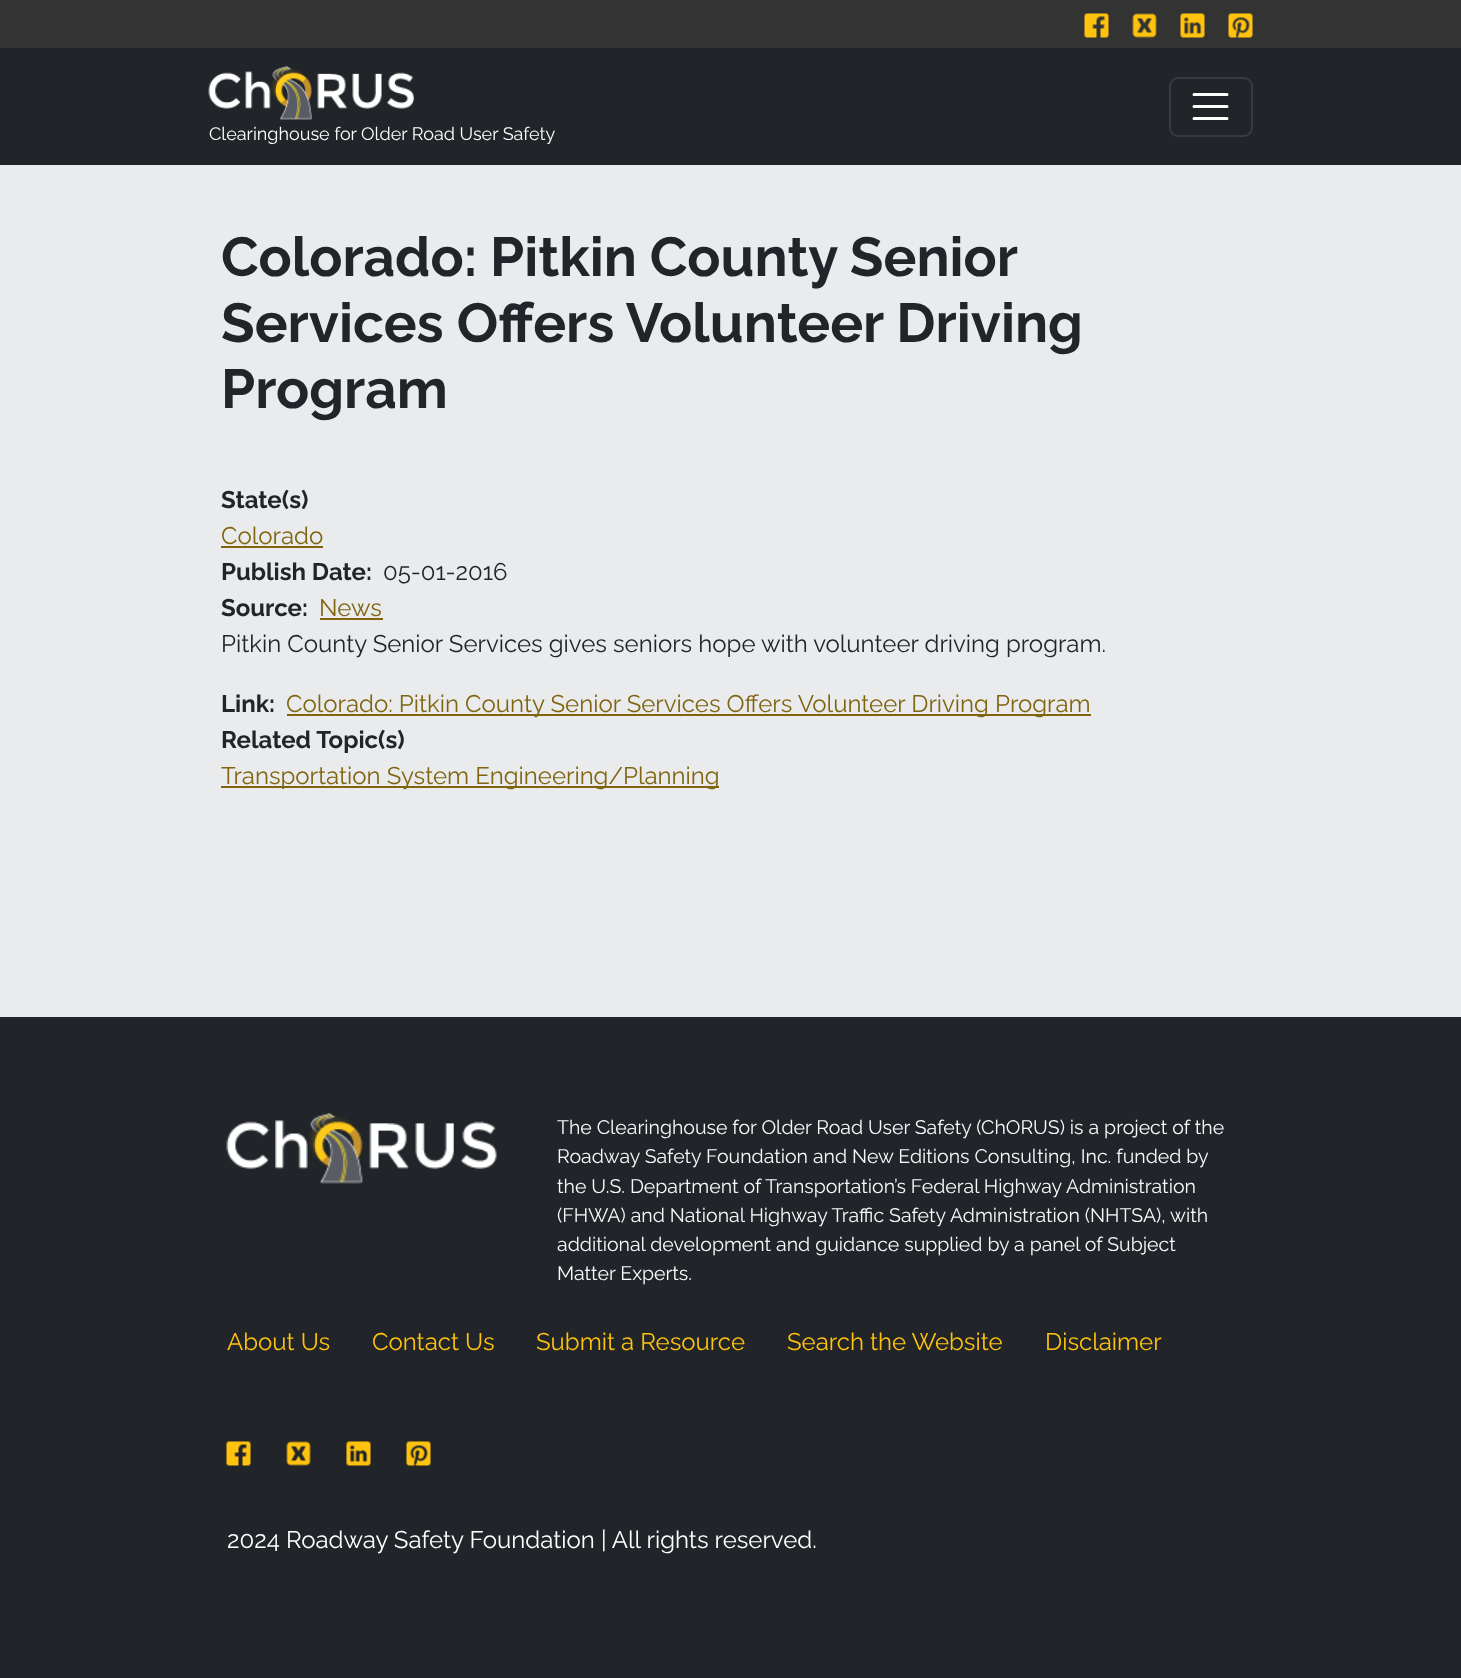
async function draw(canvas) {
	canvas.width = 1461;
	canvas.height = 1678;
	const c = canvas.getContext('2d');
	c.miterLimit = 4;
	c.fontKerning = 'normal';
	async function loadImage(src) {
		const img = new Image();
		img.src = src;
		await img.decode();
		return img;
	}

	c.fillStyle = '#e9ebed';
	c.fillRect(0, 0, 1461, 1678);
	c.fillStyle = '#333';
	c.fillRect(0, 0, 1461, 48);
	c.drawImage(await loadImage('img1.png'), 1084, 13, 25, 25);
	c.drawImage(await loadImage('img2.png'), 1132, 13, 25, 25);
	c.drawImage(await loadImage('img3.png'), 1180, 13, 25, 25);
	c.drawImage(await loadImage('img4.png'), 1228, 13, 25, 25);
	c.fillStyle = '#212529';
	c.fillRect(0, 48, 1461, 117);
	c.drawImage(await loadImage('img5.png'), 208, 66, 206, 54);
	c.font = '18px Raleway';
	c.fillStyle = '#fff';
	c.fillText('Clearinghouse for Older Road User Safety', 209, 140);
	c.beginPath();
	c.roundRect(1170, 78, 82, 58, 8);
	c.strokeStyle = '#373b3e';
	c.lineWidth = 2;
	c.stroke();
	c.beginPath();
	c.moveTo(1194, 94.5);
	c.lineTo(1227, 94.5);
	c.moveTo(1194, 106.5);
	c.lineTo(1227, 106.5);
	c.moveTo(1194, 118.5);
	c.lineTo(1227, 118.5);
	c.strokeStyle = '#fff';
	c.lineWidth = 3;
	c.lineCap = 'round';
	c.stroke();
	c.wordSpacing = '-0.5px';
	c.font = 'bold 54.9px Raleway';
	c.fillStyle = '#212529';
	c.fillText('Colorado: Pitkin County Senior', 221, 276);
	c.wordSpacing = '0px';
	c.fillText('Services Offers Volunteer Driving', 221, 342);
	c.fillText('Program', 221, 408);
	c.font = 'bold 24px Raleway';
	c.fillText('State(s)', 221, 508);
	c.font = '24px Raleway';
	c.fillStyle = '#81640e';
	c.fillText('Colorado', 221, 544);
	c.fillRect(221, 546, 102, 2);
	c.font = 'bold 24px Raleway';
	c.fillStyle = '#212529';
	c.fillText('Publish Date:', 221, 580);
	c.font = '24px Raleway';
	c.fillText('05-01-2016', 383, 580);
	c.font = 'bold 24px Raleway';
	c.fillText('Source:', 221, 616);
	c.font = '24px Raleway';
	c.fillStyle = '#81640e';
	c.fillText('News', 319, 616);
	c.fillRect(320, 618, 63, 2);
	c.fillStyle = '#212529';
	c.fillText('Pitkin County Senior Services gives seniors hope with volunteer driving program.', 221, 652);
	c.font = 'bold 24px Raleway';
	c.fillText('Link:', 221, 712);
	c.fillStyle = '#81640e';
	c.fillRect(287, 714, 804, 2);
	c.font = '24px Raleway';
	c.fillText('Colorado: Pitkin County Senior Services Offers Volunteer Driving Program', 286, 712);
	c.font = 'bold 24px Raleway';
	c.fillStyle = '#212529';
	c.fillText('Related Topic(s)', 221, 748);
	c.fillStyle = '#81640e';
	c.fillRect(221, 786, 498, 2);
	c.font = '24px Raleway';
	c.fillText('Transportation System Engineering/Planning', 221, 784);
	c.fillStyle = '#212529';
	c.fillRect(0, 1017, 1461, 661);
	c.drawImage(await loadImage('img6.png'), 226, 1113, 271, 71);
	c.font = '19.5px Raleway';
	c.fillStyle = '#f8f9fa';
	for (const [text, x, y] of [
		['The Clearinghouse for Older Road User Safety (ChORUS) is a project of the', 557, 1134],
		['Roadway Safety Foundation and New Editions Consulting, Inc. funded by', 557, 1163],
		['the U.S. Department of Transportation’s Federal Highway Administration', 557, 1193],
		['(FHWA) and National Highway Traffic Safety Administration (NHTSA), with', 557, 1222],
		['additional development and guidance supplied by a panel of Subject', 557, 1251],
		['Matter Experts.', 557, 1280],
	]) {
		c.fillText(text, x, y);
	}
	c.font = '24px Raleway';
	c.fillStyle = '#ffc20e';
	for (const [text, x, y] of [
		['About Us', 227, 1350],
		['Contact Us', 372, 1350],
		['Submit a Resource', 536, 1350],
		['Search the Website', 787, 1350],
		['Disclaimer', 1045, 1350],
	]) {
		c.fillText(text, x, y);
	}
	c.drawImage(await loadImage('img7.png'), 226, 1441, 25, 25);
	c.drawImage(await loadImage('img8.png'), 286, 1441, 25, 25);
	c.drawImage(await loadImage('img9.png'), 346, 1441, 25, 25);
	c.drawImage(await loadImage('img10.png'), 406, 1441, 25, 25);
	c.fillStyle = '#fff';
	c.fillText('2024 Roadway Safety Foundation | All rights reserved.', 227, 1548);
}

draw(document.querySelector('canvas'));
